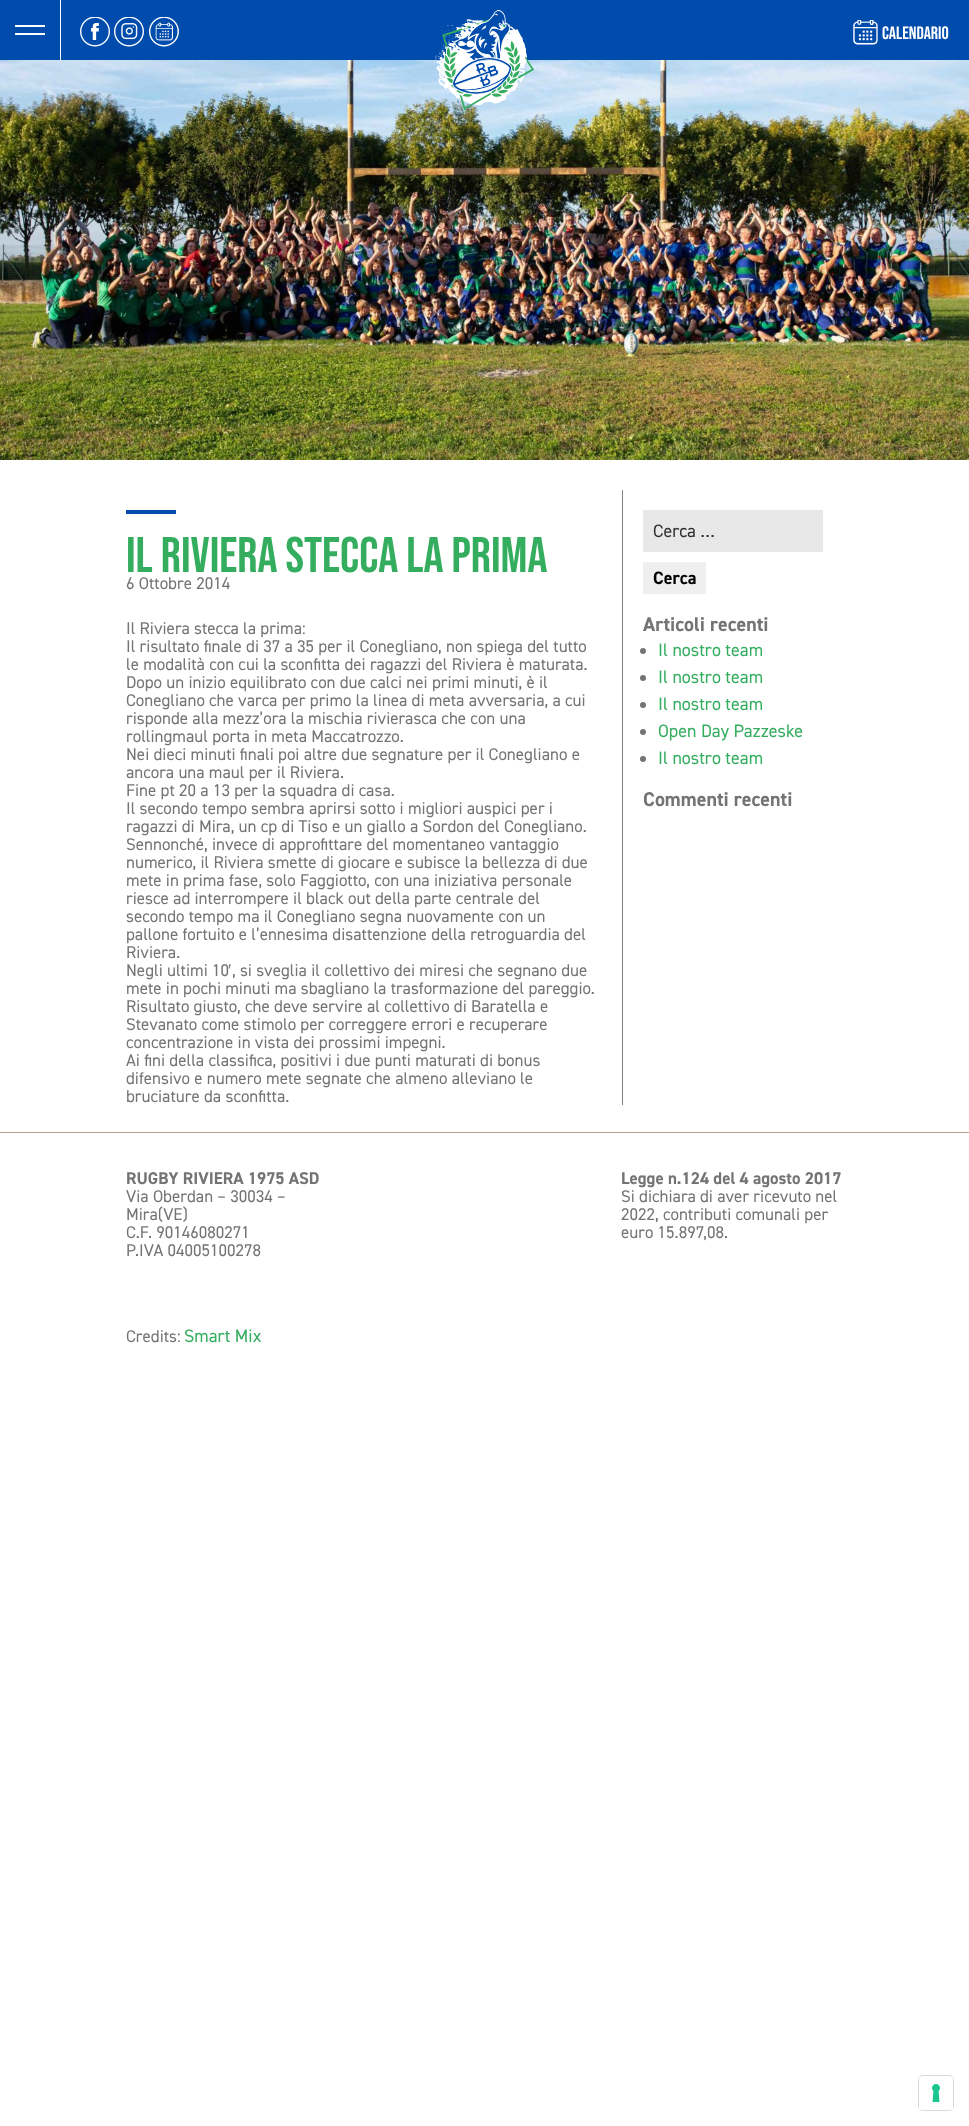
async function draw(canvas) {
	canvas.width = 969;
	canvas.height = 2126;
	const c = canvas.getContext('2d');
	c.miterLimit = 4;
	c.fontKerning = 'normal';
	async function loadImage(src) {
		const img = new Image();
		img.src = src;
		await img.decode();
		return img;
	}

	c.fillStyle = '#fff';
	c.fillRect(0, 0, 969, 2126);
	for (const [x, y, w, h, color] of [
		[0, 0, 969, 60, '#004cad'],
		[15, 25, 30, 2, '#fff'],
		[60, 0, 1, 60, '#fff'],
		[15, 33, 30, 2, '#fff'],
	]) {
		c.fillStyle = color;
		c.fillRect(x, y, w, h);
	}
	c.drawImage(await loadImage('img1.png'), 80, 17, 30, 30);
	c.drawImage(await loadImage('img2.png'), 114, 17, 30, 30);
	c.drawImage(await loadImage('img3.png'), 149, 17, 30, 30);
	c.drawImage(await loadImage('img6.png'), 0, 60, 969, 400);
	c.drawImage(await loadImage('img4.png'), 435, 10, 99, 100);
	c.drawImage(await loadImage('img5.png'), 853, 20, 25, 25);
	c.font = 'bold 18px Bebas Neue';
	c.fillText('CALENDARIO', 882, 39);
	c.fillStyle = '#004cad';
	c.fillRect(126, 510, 50, 4);
	c.font = 'bold 50px Bebas Neue';
	c.fillStyle = '#34ad5f';
	c.fillText('IL RIVIERA STECCA LA PRIMA', 126, 572);
	c.font = '17px "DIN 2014"';
	c.fillStyle = '#757474';
	for (const [text, x, y] of [
		['6 Ottobre 2014', 126, 589],
		['Il Riviera stecca la prima:', 126, 634],
		['Il risultato finale di 37 a 35 per il Conegliano, non spiega del tutto', 126, 652],
		['le modalità con cui la sconfitta dei ragazzi del Riviera è maturata.', 126, 670],
		['Dopo un inizio equilibrato con due calci nei primi minuti, è il', 126, 688],
		['Conegliano che varca per primo la linea di meta avversaria, a cui', 126, 706],
		['risponde alla mezz’ora la mischia rivierasca che con una', 126, 724],
		['rollingmaul porta in meta Maccatrozzo.', 126, 742],
		['Nei dieci minuti finali poi altre due segnature per il Conegliano e', 126, 760],
		['ancora una maul per il Riviera.', 126, 778],
		['Fine pt 20 a 13 per la squadra di casa.', 126, 796],
		['Il secondo tempo sembra aprirsi sotto i migliori auspici per i', 126, 814],
		['ragazzi di Mira, un cp di Tiso e un giallo a Sordon del Conegliano.', 126, 832],
		['Sennonché, invece di approfittare del momentaneo vantaggio', 126, 850],
		['numerico, il Riviera smette di giocare e subisce la bellezza di due', 126, 868],
		['mete in prima fase, solo Faggiotto, con una iniziativa personale', 126, 886],
		['riesce ad interrompere il black out della parte centrale del', 126, 904],
		['secondo tempo ma il Conegliano segna nuovamente con un', 126, 922],
		['pallone fortuito e l’ennesima disattenzione della retroguardia del', 126, 940],
		['Riviera.', 126, 958],
		['Negli ultimi 10', 126, 976],
	]) {
		c.fillText(text, x, y);
	}
	c.font = '17px Liberation Sans';
	c.fillText('′', 228, 976);
	c.font = '17px "DIN 2014"';
	for (const [text, x, y] of [
		[', si sveglia il collettivo dei miresi che segnano due', 232, 976],
		['mete in pochi minuti ma sbagliano la trasformazione del pareggio.', 126, 994],
		['Risultato giusto, che deve servire al collettivo di Baratella e', 126, 1012],
		['Stevanato come stimolo per correggere errori e recuperare', 126, 1030],
		['concentrazione in vista dei prossimi impegni.', 126, 1048],
		['Ai fini della classifica, positivi i due punti maturati di bonus', 126, 1066],
		['difensivo e numero mete segnate che almeno alleviano le', 126, 1084],
		['bruciature da sconfitta.', 126, 1102],
	]) {
		c.fillText(text, x, y);
	}
	c.fillStyle = '#808080';
	c.fillRect(622, 490, 1, 615);
	c.fillStyle = '#e8e8e8';
	c.fillRect(643, 510, 180, 42);
	c.font = '18px "DIN 2014"';
	c.fillStyle = '#2e2e2e';
	c.fillText('Cerca …', 653, 537);
	c.fillStyle = '#efefef';
	c.fillRect(643, 562, 63, 32);
	c.font = 'bold 18px "DIN 2014"';
	c.fillStyle = '#000';
	c.fillText('Cerca', 653, 584);
	c.font = 'bold 20px "DIN 2014"';
	c.fillStyle = '#757474';
	c.fillText('Articoli recenti', 643, 631);
	c.beginPath();
	c.arc(643, 651, 3, 0, 2 * Math.PI);
	c.fill();
	c.font = '18px "DIN 2014"';
	c.fillStyle = '#34ad5f';
	c.fillText('Il nostro team', 658, 656);
	c.fillStyle = '#757474';
	c.beginPath();
	c.arc(643, 678, 3, 0, 2 * Math.PI);
	c.fill();
	c.fillStyle = '#34ad5f';
	c.fillText('Il nostro team', 658, 683);
	c.fillStyle = '#757474';
	c.beginPath();
	c.arc(643, 705, 3, 0, 2 * Math.PI);
	c.fill();
	c.fillStyle = '#34ad5f';
	c.fillText('Il nostro team', 658, 710);
	c.fillStyle = '#757474';
	c.beginPath();
	c.arc(643, 732, 3, 0, 2 * Math.PI);
	c.fill();
	c.fillStyle = '#34ad5f';
	c.fillText('Open Day Pazzeske', 658, 737);
	c.fillStyle = '#757474';
	c.beginPath();
	c.arc(643, 759, 3, 0, 2 * Math.PI);
	c.fill();
	c.fillStyle = '#34ad5f';
	c.fillText('Il nostro team', 658, 764);
	c.font = 'bold 20px "DIN 2014"';
	c.fillStyle = '#757474';
	c.fillText('Commenti recenti', 643, 806);
	c.fillStyle = '#b1a78b';
	c.fillRect(0, 1132, 969, 1);
	c.font = 'bold 17px "DIN 2014"';
	c.fillStyle = '#757474';
	c.fillText('RUGBY RIVIERA 1975 ASD', 126, 1184);
	c.font = '17px "DIN 2014"';
	for (const [text, x, y] of [
		['Via Oberdan – 30034 –', 126, 1202],
		['Mira(VE)', 126, 1220],
		['C.F. 90146080271', 126, 1238],
		['P.IVA 04005100278', 126, 1256],
	]) {
		c.fillText(text, x, y);
	}
	c.font = 'bold 17px "DIN 2014"';
	c.fillText('Legge n.124 del 4 agosto 2017', 621, 1184);
	c.font = '17px "DIN 2014"';
	for (const [text, x, y] of [
		['Si dichiara di aver ricevuto nel', 621, 1202],
		['2022, contributi comunali per', 621, 1220],
		['euro 15.897,08.', 621, 1238],
		['Credits:', 126, 1342],
	]) {
		c.fillText(text, x, y);
	}
	c.font = '18px "DIN 2014"';
	c.fillStyle = '#34ad5f';
	c.fillText('Smart Mix', 184, 1342);
	c.beginPath();
	c.roundRect(918.5, 2075.5, 35, 35, 4.5);
	c.strokeStyle = '#d9d9d9';
	c.stroke();
	c.fillStyle = '#fff';
	c.beginPath();
	c.roundRect(919, 2076, 34, 34, 4);
	c.fill();
	c.drawImage(await loadImage('img7.png'), 932, 2084, 8, 18);
}

draw(document.querySelector('canvas'));
